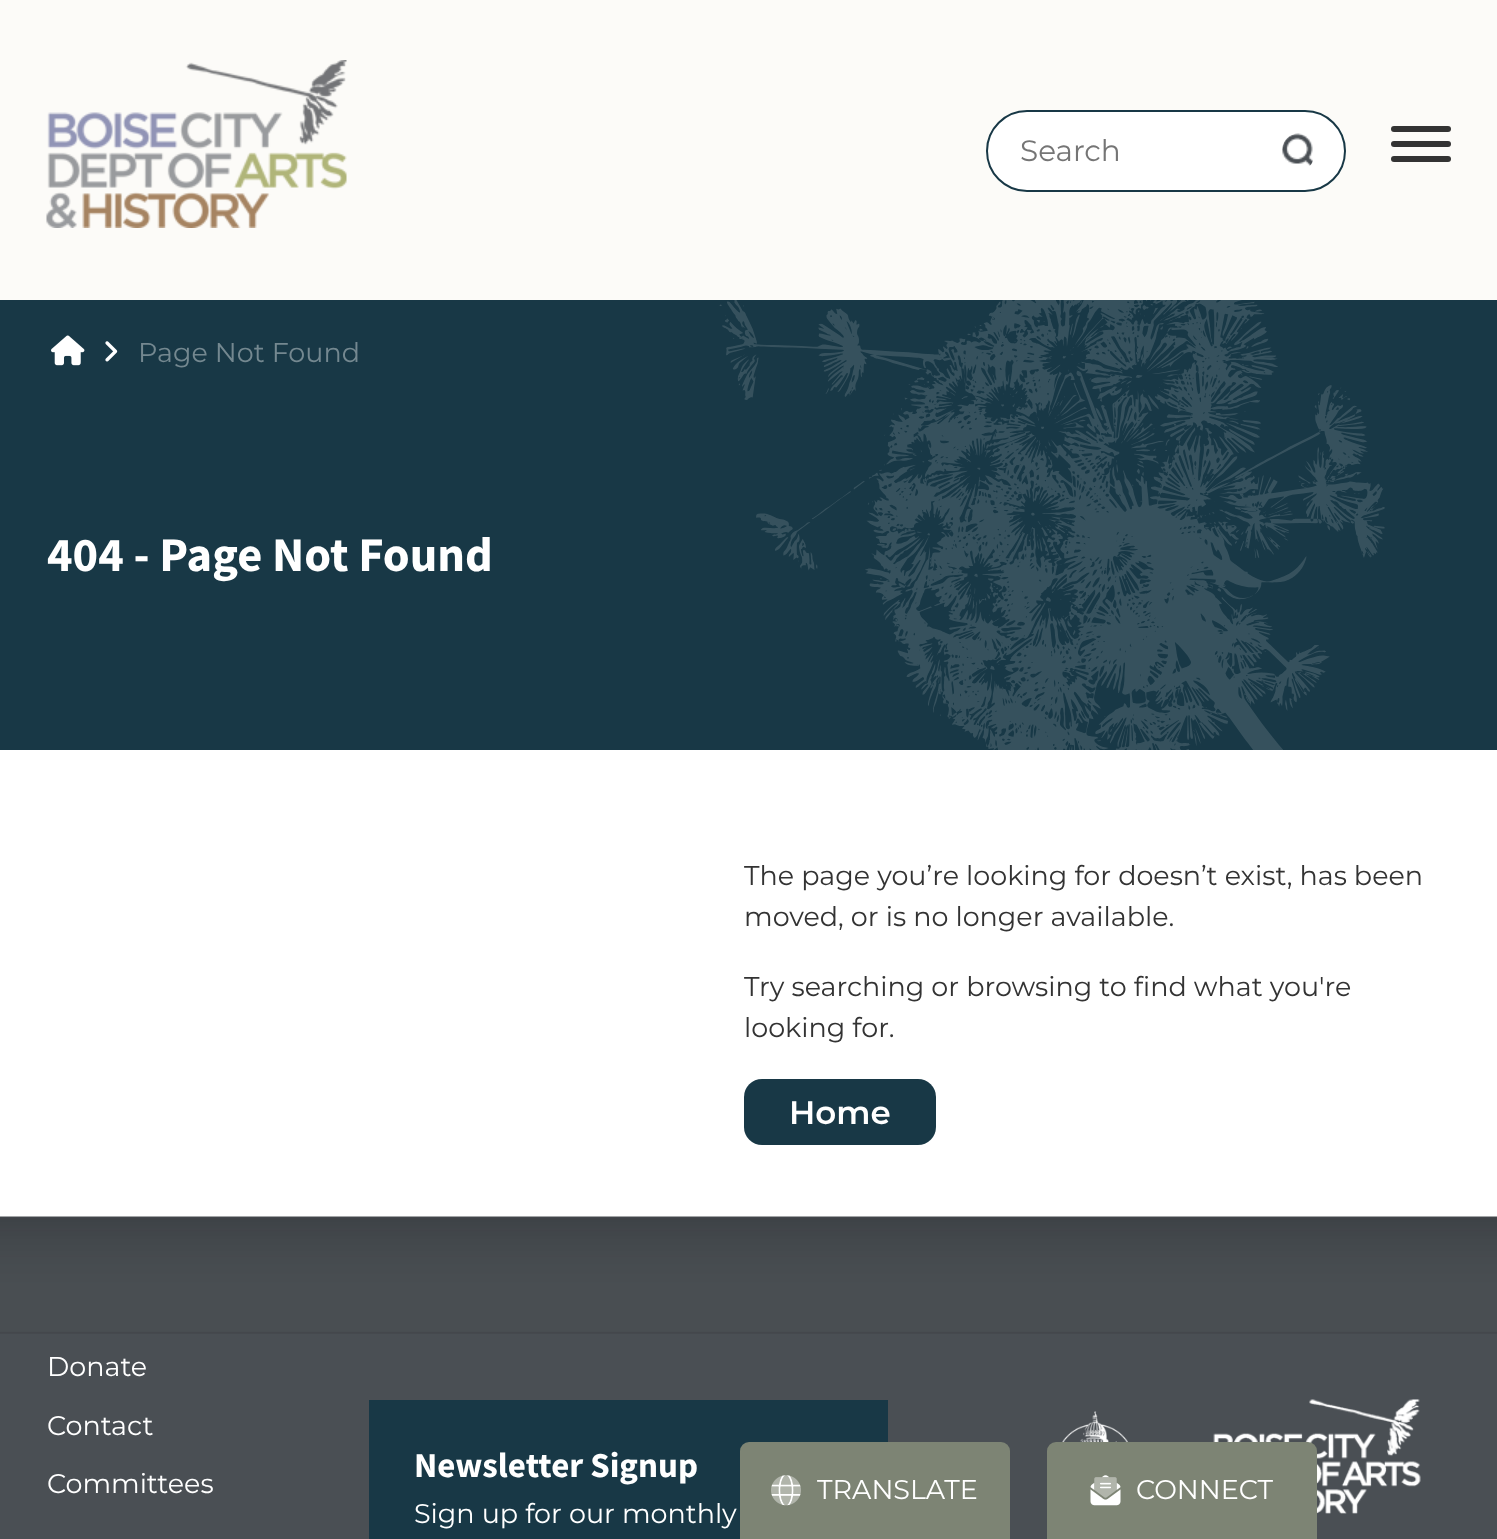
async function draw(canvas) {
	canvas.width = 1497;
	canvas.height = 1539;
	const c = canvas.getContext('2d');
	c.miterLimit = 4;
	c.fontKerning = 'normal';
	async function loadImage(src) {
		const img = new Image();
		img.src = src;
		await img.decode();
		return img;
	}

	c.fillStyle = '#fff';
	c.fillRect(0, 0, 1497, 1539);
	c.fillStyle = '#fcfbf8';
	c.fillRect(0, 0, 1497, 300);
	c.drawImage(await loadImage('img1.png'), 46, 60, 301, 168);
	c.fillStyle = '#fff';
	c.beginPath();
	c.roundRect(987, 111, 358, 80, 40);
	c.fill();
	c.strokeStyle = '#183846';
	c.lineWidth = 2;
	c.stroke();
	c.font = '29.5px Montserrat';
	c.fillStyle = '#757575';
	c.fillText('Search', 1020, 161);
	c.drawImage(await loadImage('img2.png'), 1282, 133, 31, 33);
	c.fillStyle = '#333';
	c.beginPath();
	c.roundRect(1391, 126, 60, 6, 3);
	c.fill();
	c.beginPath();
	c.roundRect(1391, 141, 60, 6, 3);
	c.fill();
	c.beginPath();
	c.roundRect(1391, 156, 60, 6, 3);
	c.fill();
	c.fillStyle = '#183846';
	c.fillRect(0, 300, 1497, 450);
	c.drawImage(await loadImage('img3.png'), 51, 335, 34, 31);
	c.drawImage(await loadImage('img4.png'), 105, 341, 13, 21);
	c.font = '27px Montserrat';
	c.fillStyle = '#748890';
	c.fillText('Page Not Found', 138, 362);
	c.font = 'bold 48.5px Source Sans Pro';
	c.fillStyle = '#fff';
	c.fillText('404 - Page Not Found', 47, 571);
	c.drawImage(await loadImage('img5.png'), 719, 300, 666, 450);
	c.font = '27px Montserrat';
	c.fillStyle = '#333';
	for (const [text, x, y] of [
		['The page you’re looking for doesn’t exist, has been', 744, 885],
		['moved, or is no longer available.', 744, 926],
		['Try searching or browsing to find what you\'re', 744, 996],
		['looking for.', 744, 1037],
	]) {
		c.fillText(text, x, y);
	}
	c.fillStyle = '#183846';
	c.beginPath();
	c.roundRect(744, 1079, 192, 66, 18);
	c.fill();
	c.font = '600 32.5px Montserrat';
	c.fillStyle = '#fff';
	c.fillText('Home', 789, 1124);
	c.fillStyle = '#4a4f54';
	c.fillRect(0, 1333, 1497, 206);
	c.drawImage(await loadImage('img6.png'), 0, 1216, 1497, 118);
	c.font = '27px Montserrat';
	c.fillStyle = '#fff';
	for (const [text, x, y] of [
		['Donate', 47, 1376],
		['Contact', 47, 1435],
		['Committees', 47, 1493],
	]) {
		c.fillText(text, x, y);
	}
	c.fillStyle = '#183846';
	c.fillRect(369, 1400, 519, 139);
	c.font = 'bold 35px Source Sans Pro';
	c.fillStyle = '#fff';
	c.fillText('Newsletter Signup', 414, 1477);
	c.font = '27px Montserrat';
	c.fillText('Sign up for our monthly', 414, 1523);
	c.drawImage(await loadImage('img7.png'), 1062, 1411, 66, 31);
	c.drawImage(await loadImage('img8.png'), 1213, 1399, 208, 115);
	c.fillStyle = '#7d8474';
	c.beginPath();
	c.roundRect(740, 1442, 270, 97, [9, 9, 0, 0]);
	c.fill();
	c.drawImage(await loadImage('img9.png'), 771, 1475, 30, 31);
	c.drawImage(await loadImage('img10.png'), 771, 1475, 30, 31);
	c.fillStyle = '#fff';
	c.fillText('TRANSLATE', 817, 1499);
	c.fillStyle = '#7d8474';
	c.beginPath();
	c.roundRect(1047, 1442, 270, 97, [9, 9, 0, 0]);
	c.fill();
	c.drawImage(await loadImage('img11.png'), 1090, 1475, 31, 31);
	c.drawImage(await loadImage('img12.png'), 1094, 1477, 23, 21);
	c.fillStyle = '#fff';
	c.fillText('CONNECT', 1136, 1499);
}

draw(document.querySelector('canvas'));
